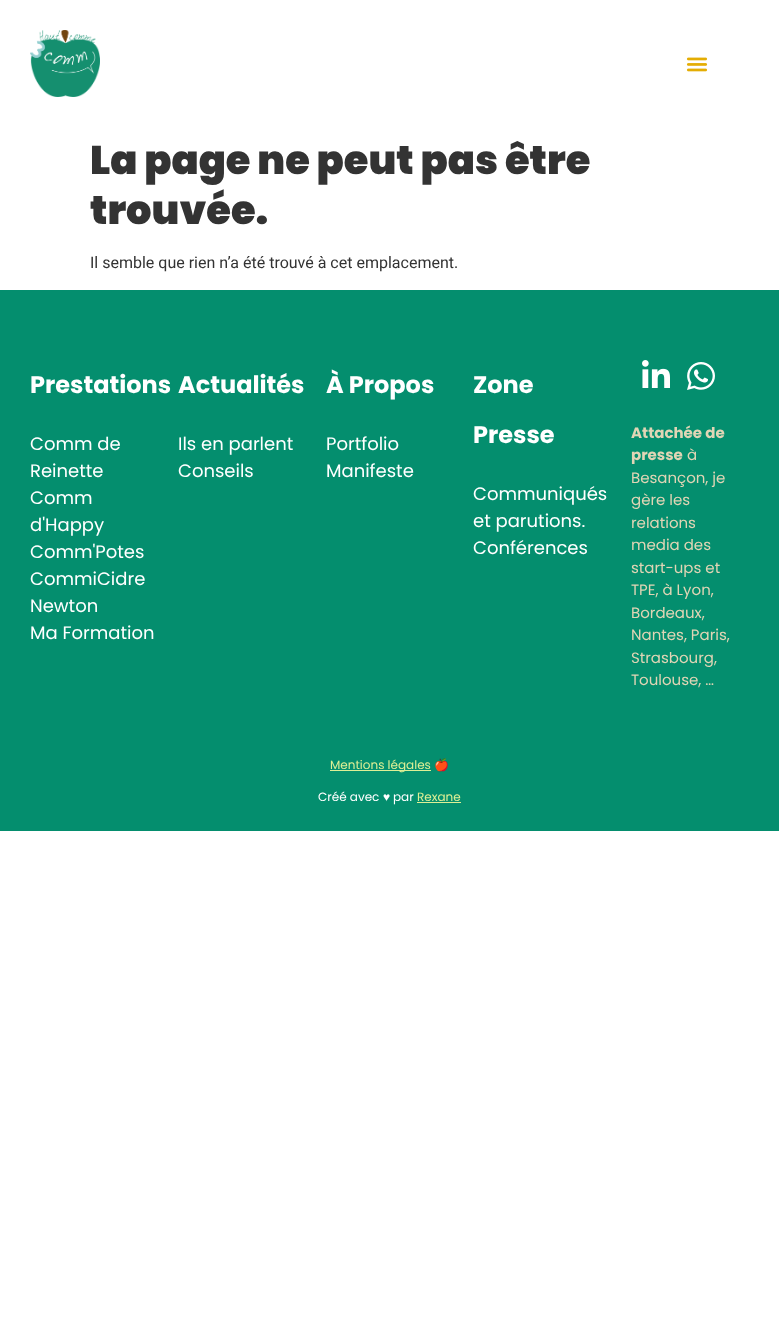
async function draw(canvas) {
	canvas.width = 779;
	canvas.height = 1319;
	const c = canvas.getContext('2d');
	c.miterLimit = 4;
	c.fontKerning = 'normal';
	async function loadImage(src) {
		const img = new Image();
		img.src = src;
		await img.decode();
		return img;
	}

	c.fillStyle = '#fff';
	c.fillRect(0, 0, 779, 1319);
	c.drawImage(await loadImage('img1.png'), 30, 30, 70, 67);
	c.drawImage(await loadImage('img2.png'), 686, 57, 22, 15);
	c.font = '900 40px Poppins';
	c.fillStyle = '#333';
	c.fillText('La page ne peut pas être', 90, 174);
	c.fillText('trouvée.', 90, 224);
	c.font = '16px Roboto';
	c.fillText('Il semble que rien n’a été trouvé à cet emplacement.', 90, 268);
	c.fillStyle = '#048e6e';
	c.fillRect(0, 290, 779, 541);
	c.font = 'bold 24px Poppins';
	c.fillStyle = '#fff';
	c.fillText('Prestations', 30, 393);
	c.font = '18px Poppins';
	for (const [text, x, y] of [
		['Comm de', 30, 450],
		['Reinette', 30, 477],
		['Comm', 30, 504],
		['d\'Happy', 30, 531],
		['Comm\'Potes', 30, 558],
		['CommiCidre', 30, 585],
		['Newton', 30, 612],
		['Ma Formation', 30, 639],
	]) {
		c.fillText(text, x, y);
	}
	c.font = 'bold 24px Poppins';
	c.fillText('Actualités', 178, 393);
	c.font = '18px Poppins';
	c.fillText('Ils en parlent', 178, 450);
	c.fillText('Conseils', 178, 477);
	c.font = 'bold 24px Poppins';
	c.fillText('À Propos', 326, 393);
	c.font = '18px Poppins';
	c.fillText('Portfolio', 326, 450);
	c.fillText('Manifeste', 326, 477);
	c.font = 'bold 24px Poppins';
	c.fillText('Zone', 473, 393);
	c.fillText('Presse', 473, 443);
	c.font = '18px Poppins';
	for (const [text, x, y] of [
		['Communiqués', 473, 500],
		['et parutions.', 473, 527],
		['Conférences', 473, 554],
	]) {
		c.fillText(text, x, y);
	}
	c.drawImage(await loadImage('img3.png'), 642, 360, 28, 28);
	c.drawImage(await loadImage('img4.png'), 687, 362, 28, 28);
	c.font = 'bold 15px Poppins';
	c.fillStyle = '#e0d5b5';
	c.fillText('Attachée de', 631, 438);
	c.fillText('presse', 631, 460);
	c.font = '15px Poppins';
	for (const [text, x, y] of [
		['à', 687, 460],
		['Besançon, je', 631, 483],
		['gère les', 631, 505],
		['relations', 631, 528],
		['media des', 631, 550],
		['start-ups et', 631, 573],
		['TPE, à Lyon,', 631, 595],
		['Bordeaux,', 631, 618],
		['Nantes, Paris,', 631, 640],
		['Strasbourg,', 631, 663],
		['Toulouse, …', 631, 685],
	]) {
		c.fillText(text, x, y);
	}
	c.fillStyle = '#deef95';
	c.fillRect(330, 770, 101, 1);
	c.font = '12px Poppins';
	c.fillText('Mentions légales', 330, 769);
	c.font = '12px Noto Color Emoji';
	c.fillStyle = '#fff';
	c.fillText('🍎', 434, 769);
	c.font = '12px Poppins';
	c.fillText('Créé avec', 318, 801);
	c.font = '12px Liberation Sans';
	c.fillText('♥', 383, 801);
	c.font = '12px Poppins';
	c.fillText('par', 393, 801);
	c.fillStyle = '#deef95';
	c.fillText('Rexane', 417, 801);
	c.fillRect(417, 802, 44, 1);
}

draw(document.querySelector('canvas'));
